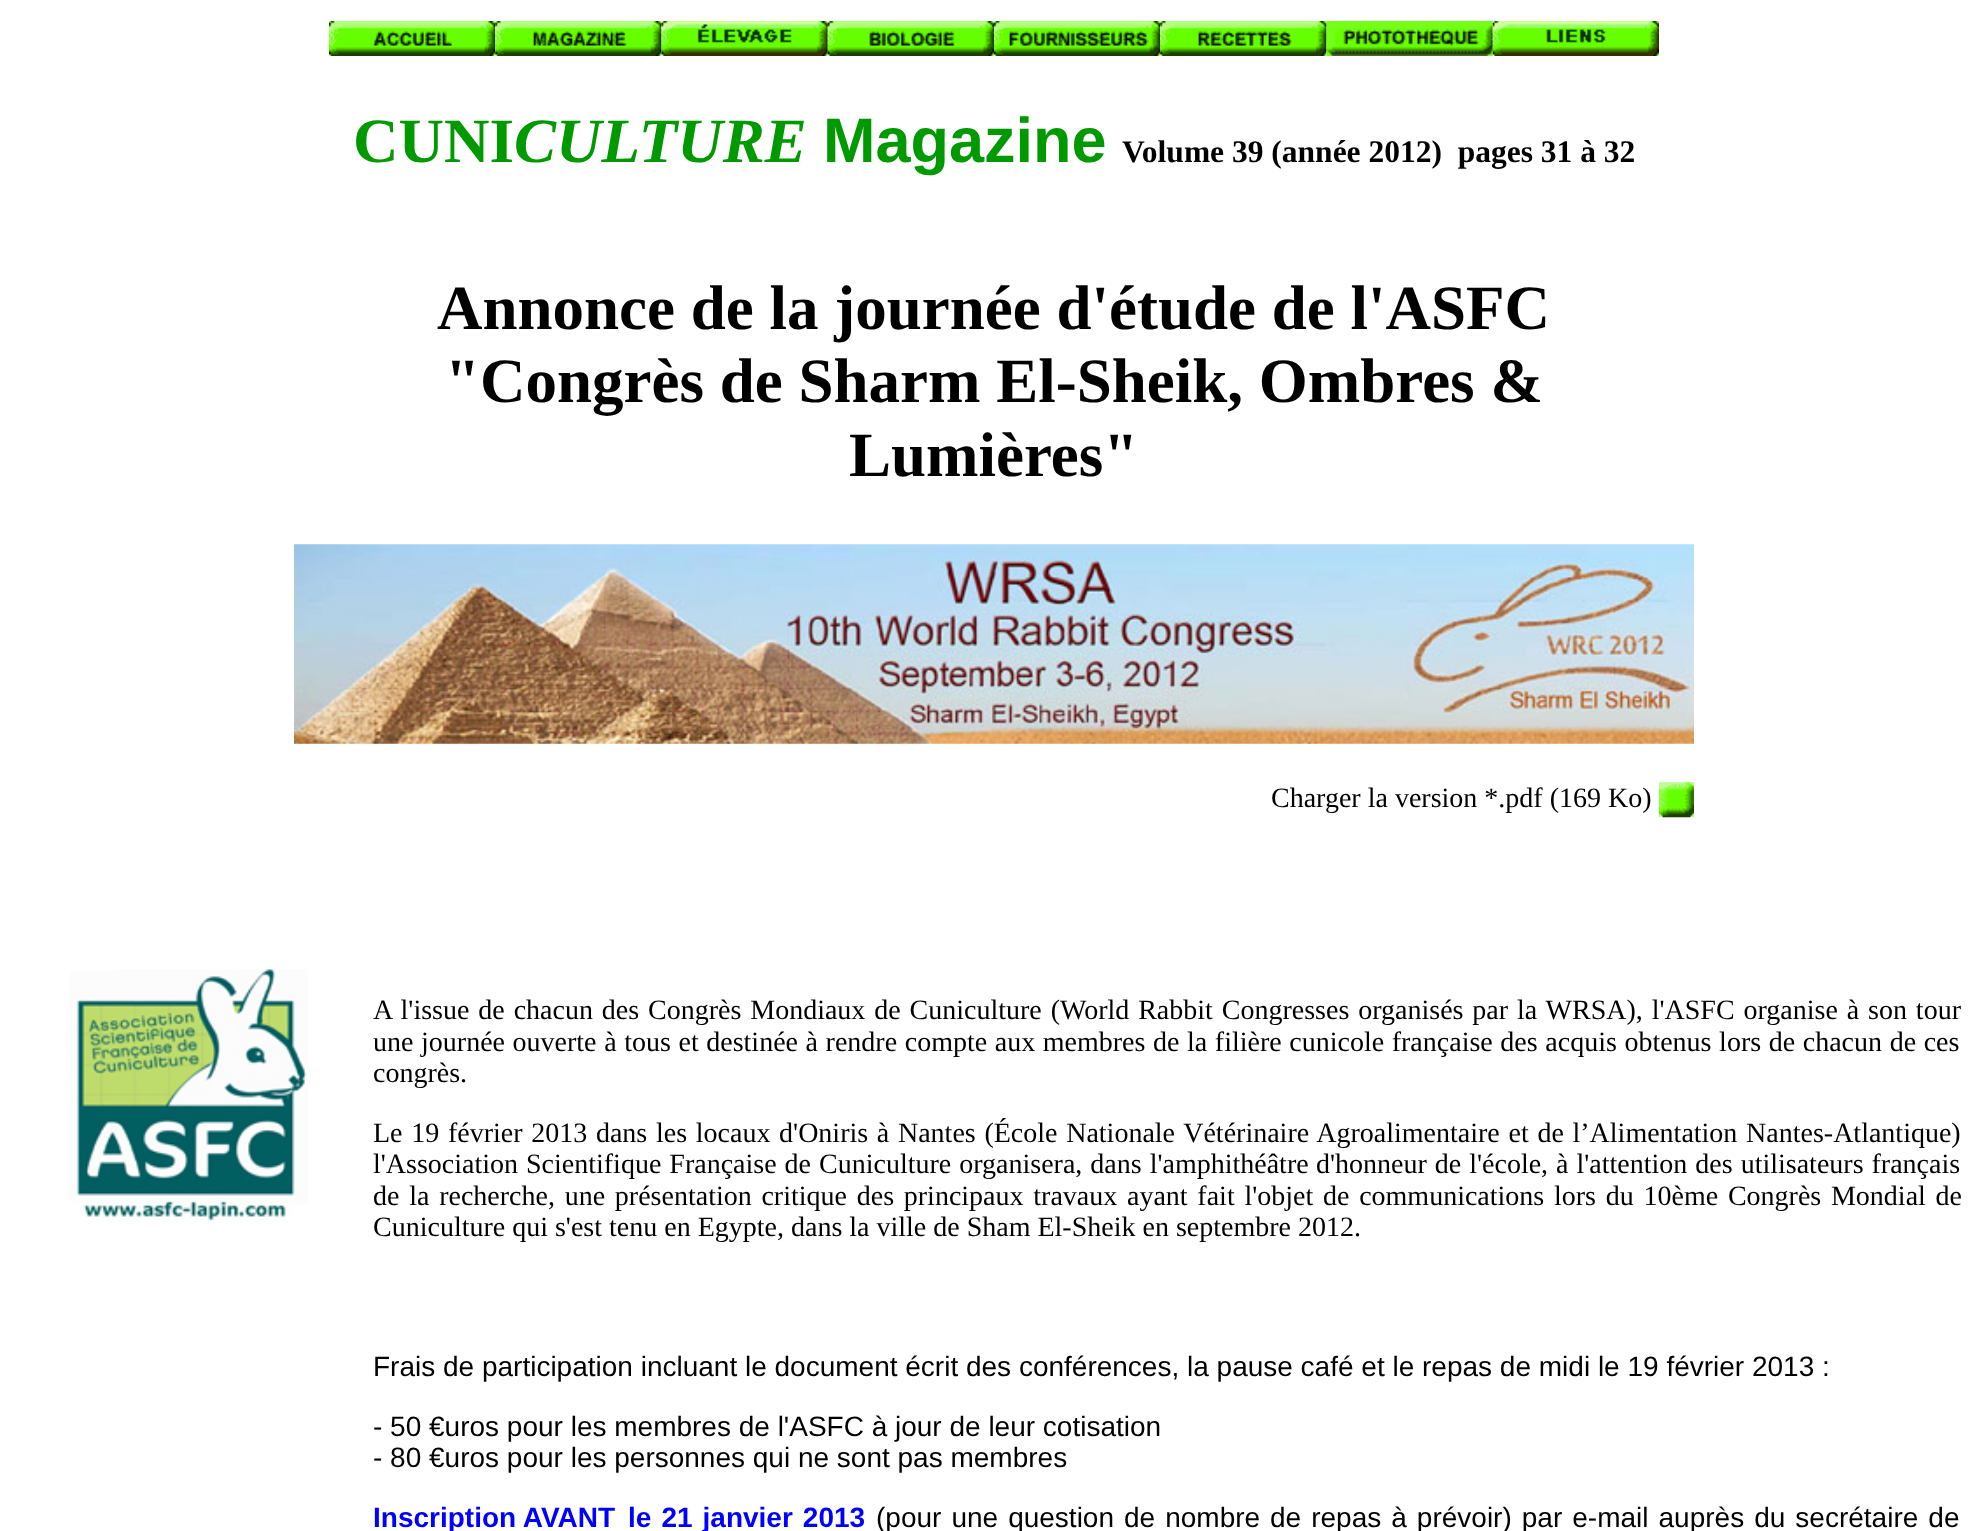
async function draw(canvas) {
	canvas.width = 1987;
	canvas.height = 1531;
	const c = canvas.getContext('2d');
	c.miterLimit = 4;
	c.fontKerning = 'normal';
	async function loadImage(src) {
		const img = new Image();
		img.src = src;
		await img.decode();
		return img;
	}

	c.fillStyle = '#fff';
	c.fillRect(0, 0, 1987, 1531);
	c.drawImage(await loadImage('img1.png'), 329, 21, 167, 35);
	c.drawImage(await loadImage('img2.png'), 495, 21, 167, 35);
	c.drawImage(await loadImage('img3.png'), 661, 21, 167, 35);
	c.drawImage(await loadImage('img4.png'), 827, 21, 167, 35);
	c.drawImage(await loadImage('img5.png'), 994, 21, 167, 35);
	c.drawImage(await loadImage('img6.png'), 1160, 21, 167, 35);
	c.drawImage(await loadImage('img7.png'), 1326, 21, 167, 35);
	c.drawImage(await loadImage('img8.png'), 1492, 21, 167, 35);
	c.font = 'bold 63px Liberation Serif';
	c.fillStyle = '#090';
	c.fillText('CUNI', 353, 162);
	c.font = 'italic bold 63px Liberation Serif';
	c.fillText('CULTURE', 514, 162);
	c.font = 'bold 63px Liberation Sans';
	c.fillText('Magazine', 823, 162);
	c.font = 'bold 31.5px Liberation Serif';
	c.fillStyle = '#000';
	c.fillText('Volume 39 (année 2012)  pages 31 à 32', 1122, 162);
	c.font = 'bold 63px Liberation Serif';
	for (const [text, x, y] of [
		['Annonce de la journée d\'étude de l\'ASFC', 437, 329],
		['"Congrès de Sharm El-Sheik, Ombres &', 445, 402],
		['Lumières"', 849, 476],
	]) {
		c.fillText(text, x, y);
	}
	c.drawImage(await loadImage('img9.png'), 294, 544, 1400, 200);
	c.font = '28px Liberation Serif';
	c.fillText('Charger la version *.pdf (169 Ko)', 1271, 807);
	c.drawImage(await loadImage('img10.png'), 1659, 782, 35, 36);
	c.drawImage(await loadImage('img11.png'), 70, 969, 238, 252);
	c.wordSpacing = '1.9px';
	c.fillText('A l\'issue de chacun des Congrès Mondiaux de Cuniculture (World Rabbit Congresses organisés par la WRSA), l\'ASFC organise à son tour', 373, 1019);
	c.wordSpacing = '0.6px';
	c.fillText('une journée ouverte à tous et destinée à rendre compte aux membres de la filière cunicole française des acquis obtenus lors de chacun de ces', 373, 1051);
	c.wordSpacing = '0px';
	c.fillText('congrès.', 373, 1082);
	c.wordSpacing = '1.7px';
	c.fillText('Le 19 février 2013 dans les locaux d\'Oniris à Nantes (École Nationale Vétérinaire Agroalimentaire et de l’Alimentation Nantes-Atlantique)', 373, 1142);
	c.wordSpacing = '1px';
	c.fillText('l\'Association Scientifique Française de Cuniculture organisera, dans l\'amphithéâtre', 373, 1173);
	c.fillText('d\'honneur de l\'école, à l\'attention des utilisateurs français', 1316, 1173);
	c.wordSpacing = '2.75px';
	c.fillText('de la recherche, une présentation critique des principaux travaux ayant fait l\'objet de communications lors du 10ème Congrès Mondial de', 373, 1205);
	c.wordSpacing = '0px';
	c.fillText('Cuniculture qui s\'est tenu en Egypte, dans la ville de Sham El-Sheik en septembre 2012.', 373, 1236);
	c.font = '28px Liberation Sans';
	for (const [text, x, y] of [
		['Frais de participation incluant le document écrit des conférences, la pause café et le repas de midi le 19 février 2013 :', 373, 1376],
		['- 50 €uros pour les membres de l\'ASFC à jour de leur cotisation', 373, 1436],
		['- 80 €uros pour les personnes qui ne sont pas membres', 373, 1467],
	]) {
		c.fillText(text, x, y);
	}
	c.font = 'bold 28px Liberation Sans';
	c.fillStyle = '#00f';
	c.fillText('Inscription AVANT', 373, 1527);
	c.wordSpacing = '2.25px';
	c.fillText('le 21 janvier 2013', 628, 1527);
	c.font = '28px Liberation Sans';
	c.fillStyle = '#000';
	c.fillText('(pour une question de nombre', 876, 1527);
	c.fillText('de repas à prévoir) par e-mail auprès du secrétaire de', 1270, 1527);
}

draw(document.querySelector('canvas'));
